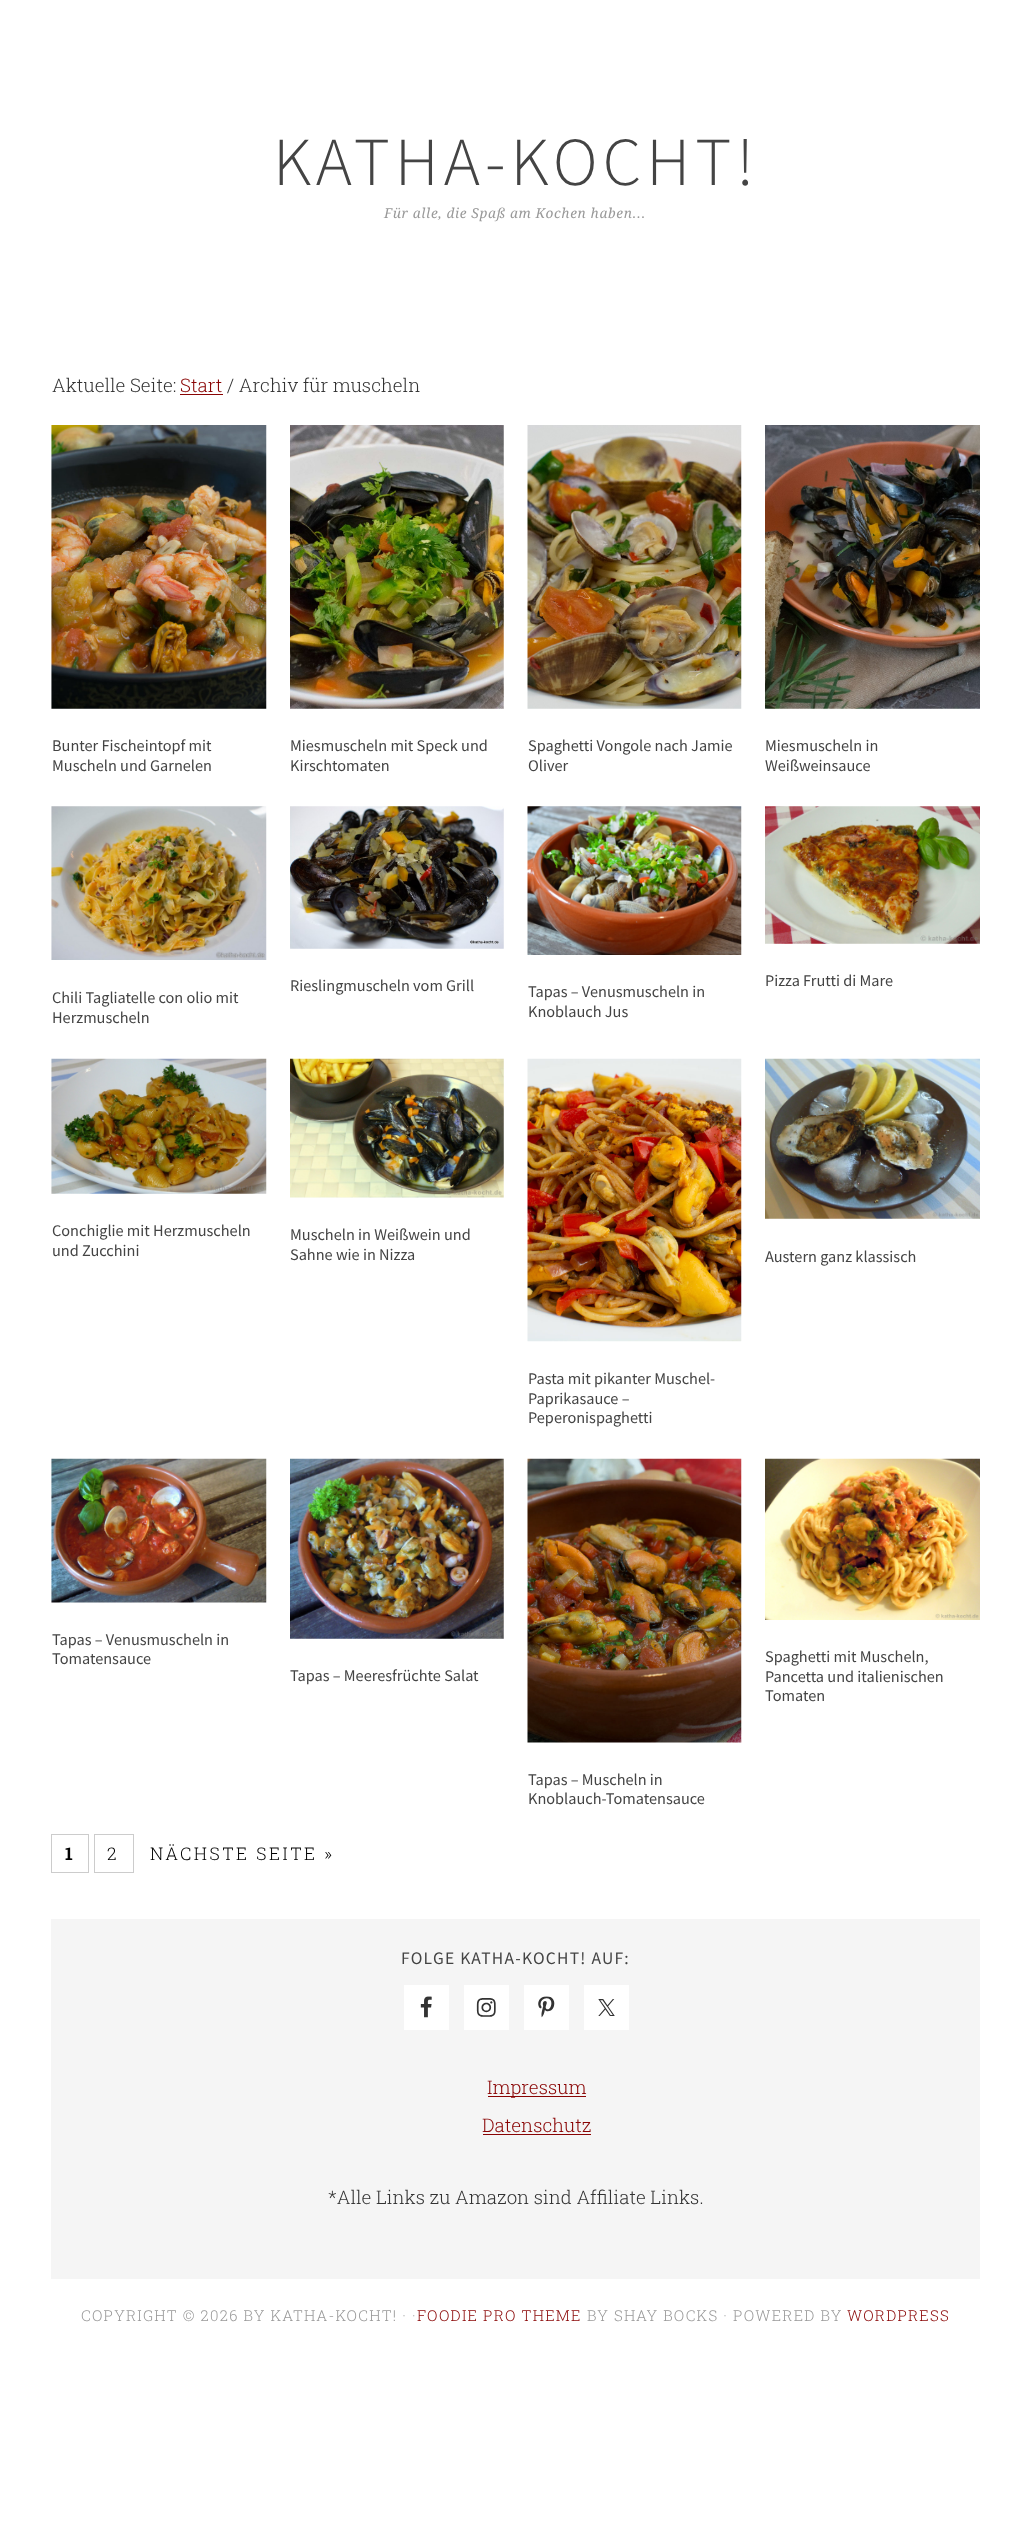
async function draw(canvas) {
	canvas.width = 1031;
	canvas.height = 2534;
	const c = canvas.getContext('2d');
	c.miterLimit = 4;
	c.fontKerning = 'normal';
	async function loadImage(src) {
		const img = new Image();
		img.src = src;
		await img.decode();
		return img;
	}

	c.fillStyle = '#fff';
	c.fillRect(0, 0, 1031, 2534);
	c.letterSpacing = '5px';
	c.font = '300 68.75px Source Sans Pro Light';
	c.fillStyle = '#444';
	c.fillText('KATHA-KOCHT!', 273, 185);
	c.letterSpacing = '0.6px';
	c.font = 'italic 13.75px Droid Serif';
	c.fillStyle = '#999';
	c.fillText('Für alle, die Spaß am Kochen haben...', 384, 218);
	c.letterSpacing = '0px';
	c.font = '300 18.75px Roboto Slab';
	c.fillStyle = '#333';
	c.fillText('Aktuelle Seite:', 52, 392);
	c.fillStyle = '#890404';
	c.fillText('Start', 180, 392);
	c.fillRect(180, 394, 43, 1);
	c.fillStyle = '#333';
	c.fillText('/ Archiv für muscheln', 227, 392);
	c.drawImage(await loadImage('img1.png'), 51, 425, 216, 284);
	c.font = '16.25px Source Sans Pro';
	c.fillStyle = '#444';
	c.fillText('Bunter Fischeintopf mit', 52, 751);
	c.fillText('Muscheln und Garnelen', 52, 771);
	c.drawImage(await loadImage('img2.png'), 290, 425, 214, 284);
	c.fillText('Miesmuscheln mit Speck und', 290, 751);
	c.fillText('Kirschtomaten', 290, 771);
	c.drawImage(await loadImage('img3.png'), 527, 425, 215, 284);
	c.fillText('Spaghetti Vongole nach Jamie', 528, 751);
	c.fillText('Oliver', 528, 771);
	c.drawImage(await loadImage('img4.png'), 765, 425, 215, 284);
	c.fillText('Miesmuscheln in', 765, 751);
	c.fillText('Weißweinsauce', 765, 771);
	c.drawImage(await loadImage('img5.png'), 51, 806, 216, 154);
	c.fillText('Chili Tagliatelle con olio mit', 52, 1003);
	c.fillText('Herzmuscheln', 52, 1023);
	c.drawImage(await loadImage('img6.png'), 290, 806, 214, 143);
	c.fillText('Rieslingmuscheln vom Grill', 290, 991);
	c.drawImage(await loadImage('img7.png'), 527, 806, 215, 149);
	c.fillText('Tapas – Venusmuscheln in', 528, 997);
	c.fillText('Knoblauch Jus', 528, 1017);
	c.drawImage(await loadImage('img8.png'), 765, 806, 215, 138);
	c.fillText('Pizza Frutti di Mare', 765, 986);
	c.drawImage(await loadImage('img9.png'), 51, 1058, 216, 136);
	c.fillText('Conchiglie mit Herzmuscheln', 52, 1236);
	c.fillText('und Zucchini', 52, 1256);
	c.drawImage(await loadImage('img10.png'), 290, 1058, 214, 140);
	c.fillText('Muscheln in Weißwein und', 290, 1240);
	c.fillText('Sahne wie in Nizza', 290, 1260);
	c.drawImage(await loadImage('img11.png'), 765, 1058, 215, 161);
	c.fillText('Austern ganz klassisch', 765, 1262);
	c.drawImage(await loadImage('img12.png'), 527, 1058, 215, 284);
	for (const [text, x, y] of [
		['Pasta mit pikanter Muschel-', 528, 1384],
		['Paprikasauce –', 528, 1404],
		['Peperonispaghetti', 528, 1423],
	]) {
		c.fillText(text, x, y);
	}
	c.drawImage(await loadImage('img13.png'), 51, 1458, 216, 145);
	c.fillText('Tapas – Venusmuscheln in', 52, 1645);
	c.fillText('Tomatensauce', 52, 1664);
	c.drawImage(await loadImage('img14.png'), 290, 1458, 214, 181);
	c.fillText('Tapas – Meeresfrüchte Salat', 290, 1681);
	c.drawImage(await loadImage('img15.png'), 765, 1458, 215, 162);
	for (const [text, x, y] of [
		['Spaghetti mit Muscheln,', 765, 1662],
		['Pancetta und italienischen', 765, 1682],
		['Tomaten', 765, 1701],
	]) {
		c.fillText(text, x, y);
	}
	c.drawImage(await loadImage('img16.png'), 527, 1458, 215, 285);
	c.fillText('Tapas – Muscheln in', 528, 1785);
	c.fillText('Knoblauch-Tomatensauce', 528, 1804);
	c.strokeStyle = '#ccc';
	c.strokeRect(51.5, 1834.5, 37, 38);
	c.letterSpacing = '2.5px';
	c.font = 'bold 17.5px Roboto Slab';
	c.fillStyle = '#010101';
	c.fillText('1', 65, 1860);
	c.strokeRect(94.5, 1834.5, 39, 38);
	c.font = '300 17.5px Roboto Slab';
	c.fillText('2', 107, 1860);
	c.fillText('NÄCHSTE SEITE »', 150, 1860);
	c.fillStyle = '#f5f5f5';
	c.fillRect(51, 1919, 929, 360);
	c.letterSpacing = '1.25px';
	c.font = '17.5px Source Sans Pro';
	c.fillStyle = '#444';
	c.fillText('FOLGE KATHA-KOCHT! AUF:', 401, 1964);
	c.fillStyle = '#fff';
	c.fillRect(404, 1985, 45, 45);
	c.drawImage(await loadImage('img17.png'), 420, 1996, 12, 22);
	c.fillRect(464, 1985, 45, 45);
	c.drawImage(await loadImage('img18.png'), 476, 1998, 20, 19);
	c.fillRect(524, 1985, 45, 45);
	c.drawImage(await loadImage('img19.png'), 538, 1996, 17, 22);
	c.fillRect(584, 1985, 45, 45);
	c.drawImage(await loadImage('img20.png'), 598, 1999, 17, 17);
	c.fillStyle = '#890404';
	c.fillRect(488, 2096, 98, 1);
	c.letterSpacing = '0px';
	c.font = '300 18.75px Roboto Slab';
	c.fillText('Impressum', 487, 2094);
	c.fillText('Datenschutz', 482, 2132);
	c.fillRect(483, 2134, 108, 1);
	c.fillStyle = '#333';
	c.fillText('*Alle Links zu Amazon sind Affiliate Links.', 328, 2204);
	c.letterSpacing = '1.25px';
	c.font = '300 15px Roboto Slab';
	c.fillStyle = '#999';
	c.fillText('COPYRIGHT © 2026 BY KATHA-KOCHT! · ·', 81, 2321);
	c.fillStyle = '#890404';
	c.fillText('FOODIE PRO THEME', 417, 2321);
	c.fillStyle = '#999';
	c.fillText('BY SHAY BOCKS · POWERED BY', 587, 2321);
	c.fillStyle = '#890404';
	c.fillText('WORDPRESS', 847, 2321);
}

draw(document.querySelector('canvas'));
